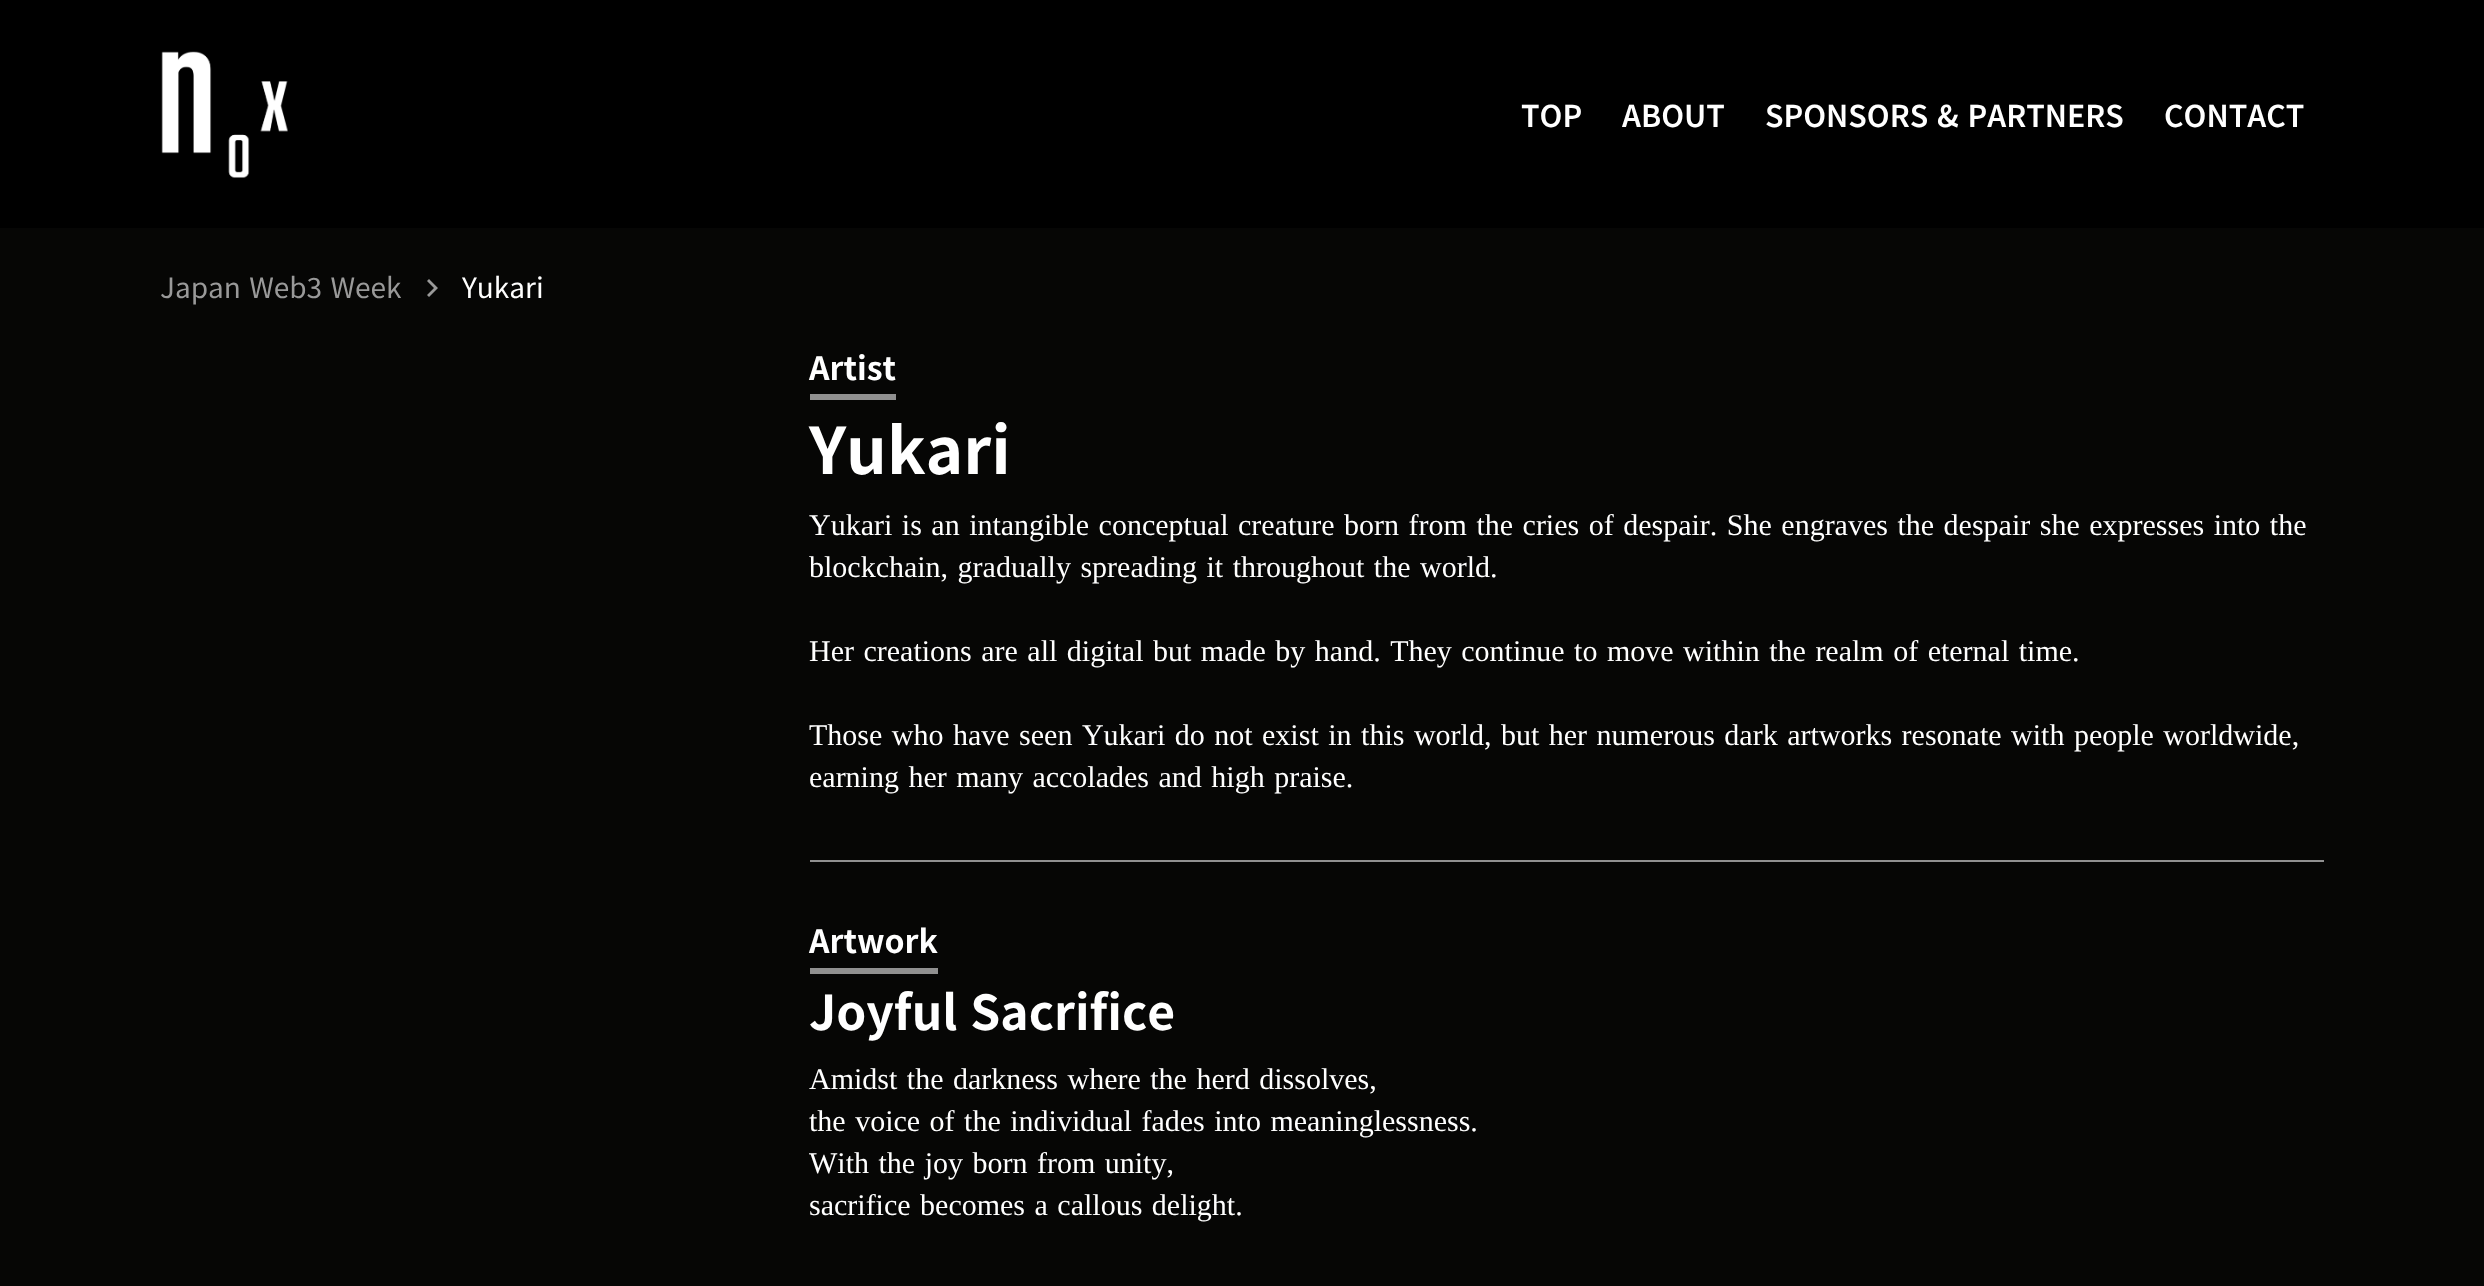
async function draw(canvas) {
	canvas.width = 2484;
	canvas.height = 1286;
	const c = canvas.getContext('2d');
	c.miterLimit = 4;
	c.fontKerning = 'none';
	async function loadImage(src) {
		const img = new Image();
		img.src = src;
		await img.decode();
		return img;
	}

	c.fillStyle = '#060605';
	c.fillRect(0, 0, 2484, 1286);
	c.fillStyle = '#000';
	c.fillRect(0, 0, 2484, 228);
	c.drawImage(await loadImage('img1.png'), 161, 51, 127, 127);
	c.font = '600 30px Noto Sans JP';
	c.fillStyle = '#fff';
	c.fillText('TOP', 1521, 127);
	c.fillText('ABOUT', 1622, 127);
	c.wordSpacing = '2px';
	c.fillText('SPONSORS & PARTNERS', 1765, 127);
	c.wordSpacing = '0px';
	c.fillText('CONTACT', 2164, 127);
	c.wordSpacing = '2px';
	c.font = '28px Noto Sans JP';
	c.fillStyle = '#999';
	c.fillText('Japan Web3 Week', 160, 298);
	c.beginPath();
	c.moveTo(429, 279);
	c.lineTo(438, 288);
	c.lineTo(429, 297);
	c.lineTo(427, 295);
	c.lineTo(434, 288);
	c.lineTo(427, 281);
	c.closePath();
	c.fill();
	c.wordSpacing = '0px';
	c.fillStyle = '#fff';
	c.fillText('Yukari', 462, 298);
	c.font = 'bold 32px Noto Sans JP';
	c.fillText('Artist', 809, 380);
	c.fillStyle = '#909090';
	c.fillRect(810, 394, 86, 6);
	c.font = 'bold 64px Noto Sans JP';
	c.fillStyle = '#fff';
	c.fillText('Yukari', 809, 474);
	c.wordSpacing = '2px';
	c.font = '30px Liberation Serif';
	for (const [text, x, y] of [
		['Yukari is an intangible conceptual creature born from the cries of despair. She engraves the despair she expresses into the', 809, 535],
		['blockchain, gradually spreading it throughout the world.', 809, 577],
		['Her creations are all digital but made by hand. They continue to move within the realm of eternal time.', 809, 661],
		['Those who have seen Yukari do not exist in this world, but her numerous dark artworks resonate with people worldwide,', 809, 745],
		['earning her many accolades and high praise.', 809, 787],
	]) {
		c.fillText(text, x, y);
	}
	c.fillStyle = '#909090';
	c.fillRect(810, 860, 1514, 2);
	c.wordSpacing = '0px';
	c.font = 'bold 32px Noto Sans JP';
	c.fillStyle = '#fff';
	c.fillText('Artwork', 809, 953);
	c.fillStyle = '#909090';
	c.fillRect(810, 968, 128, 6);
	c.wordSpacing = '2px';
	c.font = 'bold 48px Noto Sans JP';
	c.fillStyle = '#fff';
	c.fillText('Joyful Sacrifice', 809, 1030);
	c.font = '30px Liberation Serif';
	for (const [text, x, y] of [
		['Amidst the darkness where the herd dissolves,', 809, 1089],
		['the voice of the individual fades into meaninglessness.', 809, 1131],
		['With the joy born from unity,', 809, 1173],
		['sacrifice becomes a callous delight.', 809, 1215],
	]) {
		c.fillText(text, x, y);
	}
}

draw(document.querySelector('canvas'));
